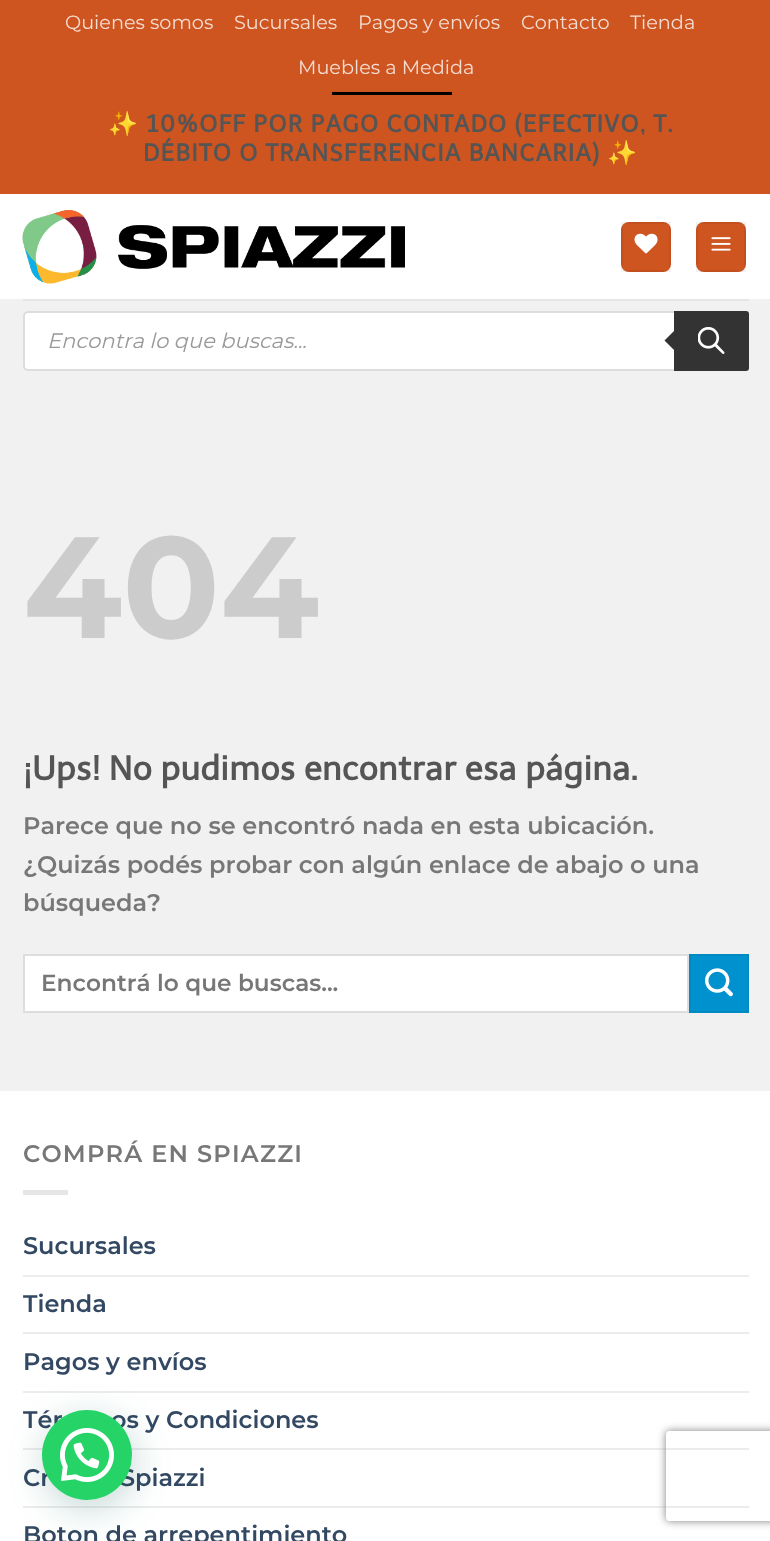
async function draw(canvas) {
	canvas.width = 770;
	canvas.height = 1541;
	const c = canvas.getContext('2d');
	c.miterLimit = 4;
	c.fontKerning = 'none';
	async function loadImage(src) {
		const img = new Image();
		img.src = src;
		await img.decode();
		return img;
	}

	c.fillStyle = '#f1f1f1';
	c.fillRect(0, 0, 770, 1541);
	c.fillStyle = '#ce5420';
	c.fillRect(0, 0, 770, 194);
	c.font = '19.25px Montserrat';
	c.fillStyle = '#f5ddd2';
	for (const [text, x, y] of [
		['Quienes somos', 65, 29],
		['Sucursales', 234, 29],
		['Pagos y envíos', 358, 29],
		['Contacto', 521, 29],
		['Tienda', 630, 29],
		['Muebles a Medida', 298, 74],
	]) {
		c.fillText(text, x, y);
	}
	c.fillStyle = '#000';
	c.fillRect(332, 92, 120, 3);
	c.letterSpacing = '1.2px';
	c.font = 'bold 24px Noto Color Emoji';
	c.fillStyle = '#555';
	c.fillText('✨', 108, 132);
	c.font = 'bold 24px Telex';
	c.fillText('10%OFF POR PAGO CONTADO (EFECTIVO, T.', 146, 132);
	c.fillText('DÉBITO O TRANSFERENCIA BANCARIA)', 143, 161);
	c.font = 'bold 24px Noto Color Emoji';
	c.fillText('✨', 607, 161);
	c.fillStyle = '#fff';
	c.fillRect(0, 194, 770, 105);
	c.drawImage(await loadImage('img1.png'), 22, 210, 383, 74);
	c.fillStyle = '#ce5420';
	c.beginPath();
	c.roundRect(621, 222, 50, 50, 8);
	c.fill();
	c.strokeStyle = '#0000000d';
	c.lineWidth = 2;
	c.strokeRect(622, 223, 48, 48);
	c.drawImage(await loadImage('img2.png'), 634, 233, 24, 21);
	c.beginPath();
	c.roundRect(696, 222, 50, 50, 8);
	c.fill();
	c.strokeRect(697, 223, 48, 48);
	c.drawImage(await loadImage('img3.png'), 711, 237, 20, 14);
	c.fillStyle = '#e5e5e5';
	c.fillRect(23, 299, 726, 2);
	c.fillStyle = '#fff';
	c.beginPath();
	c.roundRect(24, 312, 724, 58, 4);
	c.fill();
	c.strokeStyle = '#ddd';
	c.stroke();
	c.letterSpacing = '0px';
	c.font = 'italic 21px Montserrat';
	c.fillStyle = '#999';
	c.fillText('Encontra lo que buscas...', 47, 348);
	c.fillStyle = '#333';
	c.beginPath();
	c.roundRect(674, 311, 75, 60, [0, 3, 3, 0]);
	c.fill();
	c.beginPath();
	c.moveTo(676.5, 328.5);
	c.lineTo(676.5, 352.5);
	c.lineTo(664.5, 340.5);
	c.closePath();
	c.fill();
	c.drawImage(await loadImage('img4.png'), 698, 327, 27, 27);
	c.font = 'bold 144px Montserrat';
	c.fillStyle = '#ccc';
	c.fillText('404', 23, 638);
	c.font = 'bold 33.6px Telex';
	c.fillStyle = '#555';
	c.fillText('¡Ups! No pudimos encontrar esa página.', 23, 780);
	c.font = '600 24px Montserrat';
	c.fillStyle = '#777';
	for (const [text, x, y] of [
		['Parece que no se encontró nada en esta ubicación.', 23, 834],
		['¿Quizás podés probar con algún enlace de abajo o una', 23, 873],
		['búsqueda?', 23, 911],
	]) {
		c.fillText(text, x, y);
	}
	c.fillStyle = '#fff';
	c.beginPath();
	c.rect(24, 955, 664, 57);
	c.fill();
	c.stroke();
	c.font = '600 23.25px Montserrat';
	c.fillStyle = '#777';
	c.fillText('Encontrá lo que buscas...', 41, 991);
	c.fillStyle = '#0091ce';
	c.beginPath();
	c.rect(690, 955, 58, 57);
	c.fill();
	c.strokeStyle = '#008ac4';
	c.stroke();
	c.drawImage(await loadImage('img5.png'), 705, 968, 28, 29);
	c.fillStyle = '#fff';
	c.fillRect(0, 1091, 770, 450);
	c.letterSpacing = '1.2px';
	c.font = '600 24px Montserrat';
	c.fillStyle = '#777';
	c.fillText('COMPRÁ EN SPIAZZI', 23, 1162);
	c.fillStyle = '#e6e6e6';
	c.fillRect(23, 1190, 45, 5);
	c.letterSpacing = '0px';
	c.fillStyle = '#334862';
	c.fillText('Sucursales', 23, 1254);
	c.fillStyle = '#ececec';
	c.fillRect(23, 1275, 726, 2);
	c.fillStyle = '#334862';
	c.fillText('Tienda', 23, 1312);
	c.fillStyle = '#ececec';
	c.fillRect(23, 1332, 726, 2);
	c.fillStyle = '#334862';
	c.fillText('Pagos y envíos', 23, 1370);
	c.fillStyle = '#ececec';
	c.fillRect(23, 1391, 726, 2);
	c.fillStyle = '#334862';
	c.fillText('Tér', 23, 1428);
	c.fillText('os y Condiciones', 111, 1428);
	c.fillStyle = '#ececec';
	c.fillRect(23, 1448, 726, 2);
	c.fillStyle = '#334862';
	c.fillText('Cr', 23, 1486);
	c.fillText('Spiazzi', 120, 1486);
	c.fillStyle = '#ececec';
	c.fillRect(23, 1506, 726, 2);
	c.fillStyle = '#334862';
	c.fillText('Boton de arrepentimiento', 23, 1543);
	c.fillStyle = '#075e543d';
	c.filter = 'blur(18px)';
	c.beginPath();
	c.roundRect(44, 1419, 90, 90, 45);
	c.fill();
	c.filter = 'none';
	c.fillStyle = '#25d366';
	c.beginPath();
	c.arc(87, 1455, 45, 0, 2 * Math.PI);
	c.fill();
	c.drawImage(await loadImage('img6.png'), 60, 1428, 54, 54);
	c.save();
	c.beginPath();
	c.moveTo(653, 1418);
	c.lineTo(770, 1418);
	c.lineTo(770, 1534);
	c.lineTo(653, 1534);
	c.closePath();
	c.moveTo(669, 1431);
	c.lineTo(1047, 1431);
	c.bezierCurveTo(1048.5, 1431, 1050, 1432.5, 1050, 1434);
	c.lineTo(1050, 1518);
	c.bezierCurveTo(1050, 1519.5, 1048.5, 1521, 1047, 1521);
	c.lineTo(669, 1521);
	c.bezierCurveTo(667.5, 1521, 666, 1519.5, 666, 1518);
	c.lineTo(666, 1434);
	c.bezierCurveTo(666, 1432.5, 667.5, 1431, 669, 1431);
	c.closePath();
	c.clip('evenodd');
	c.fillStyle = '#808080';
	c.filter = 'blur(4px)';
	c.beginPath();
	c.roundRect(666, 1431, 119, 90, 3);
	c.fill();
	c.filter = 'none';
	c.restore();
}

draw(document.querySelector('canvas'));
